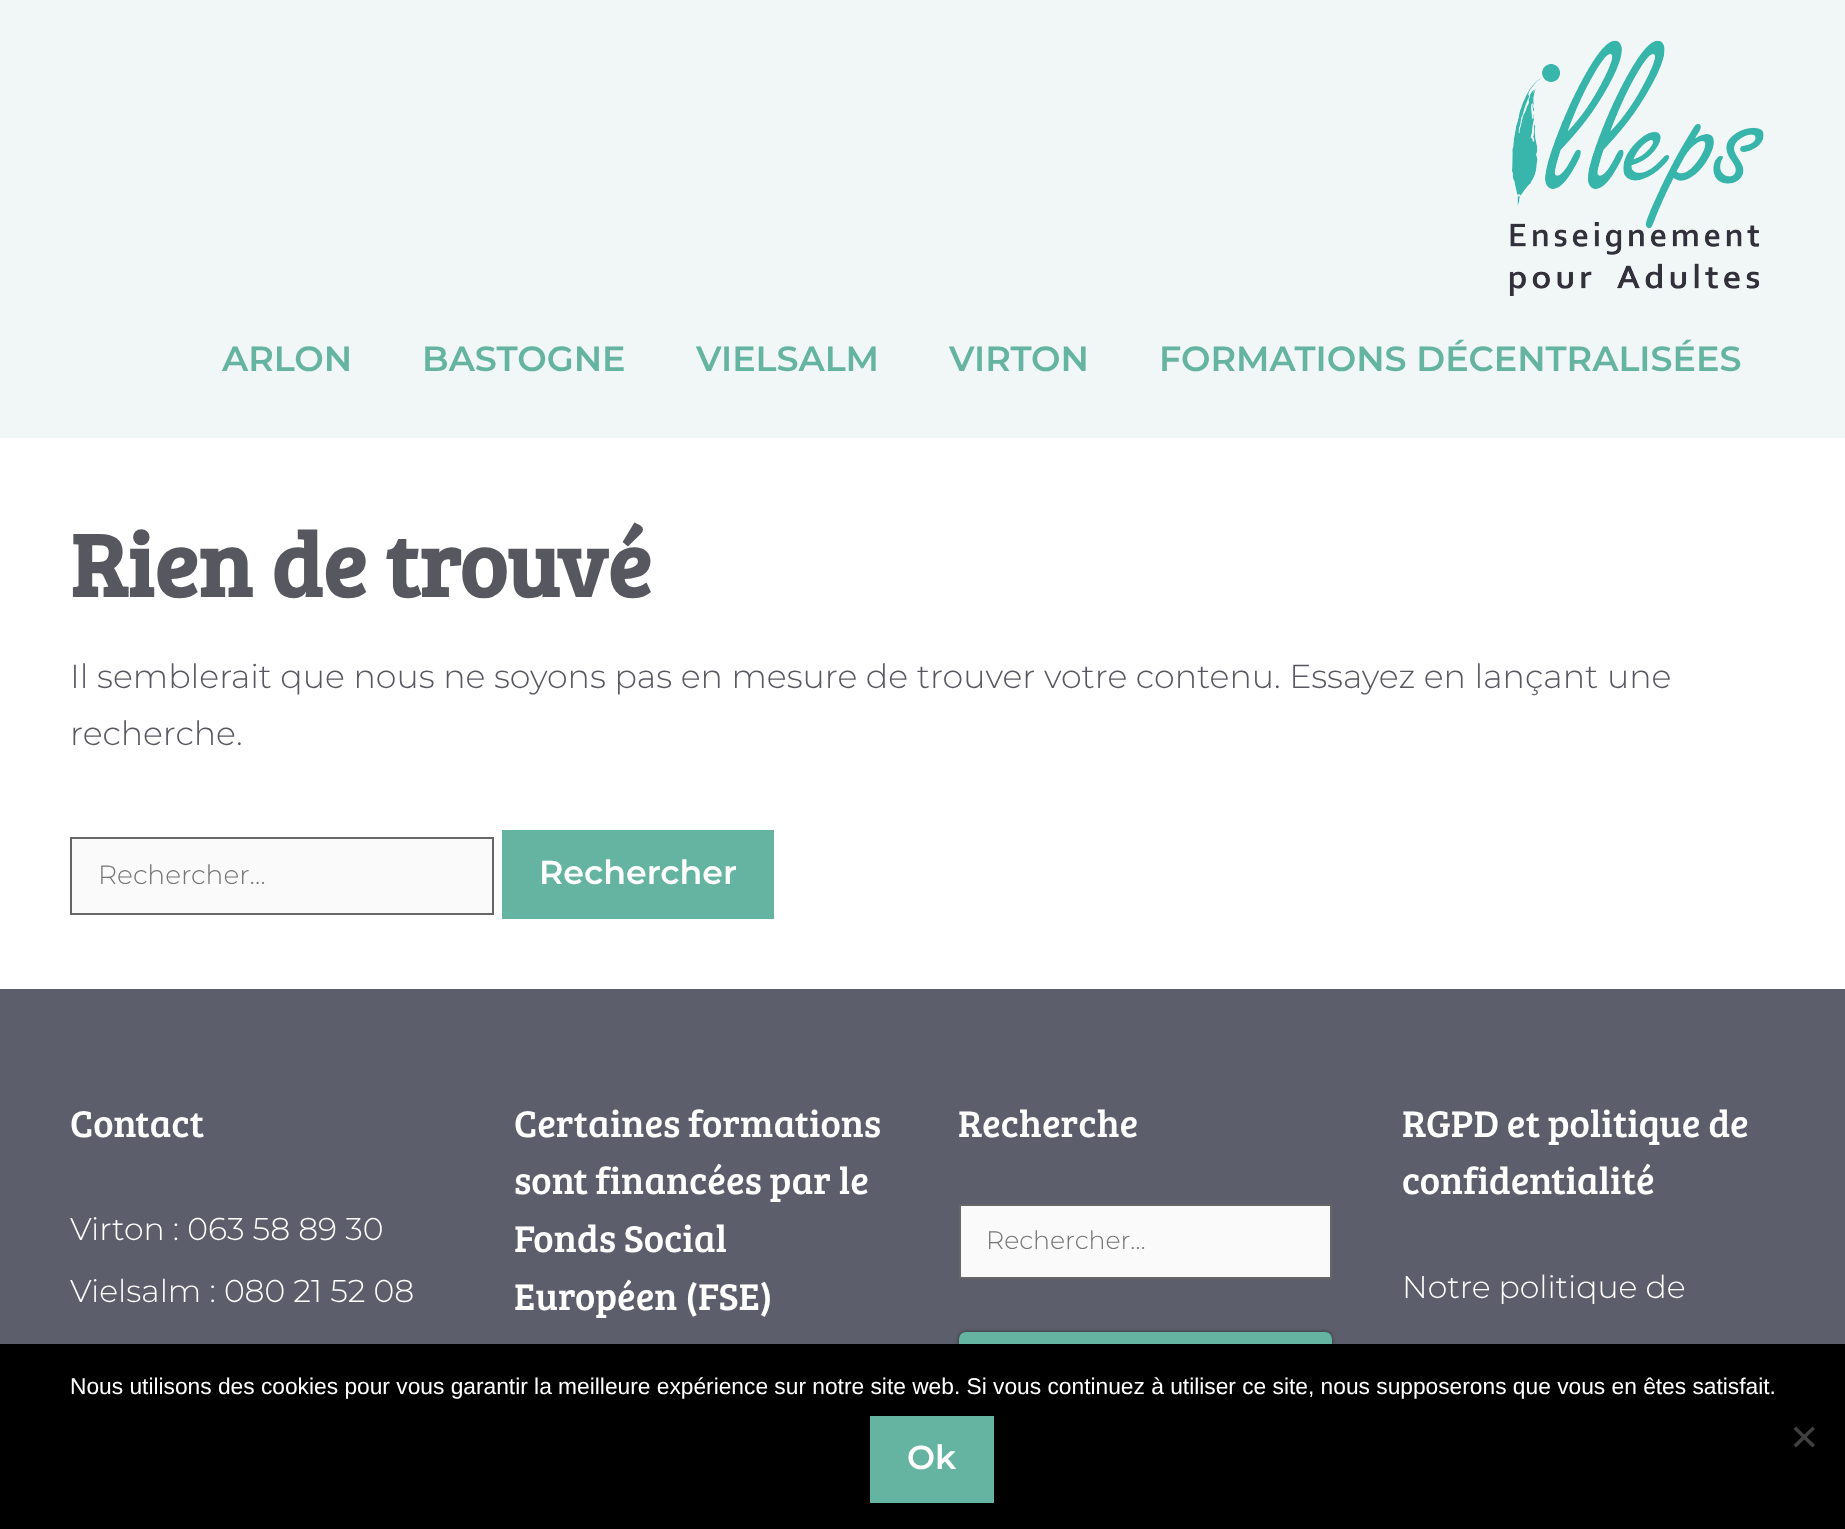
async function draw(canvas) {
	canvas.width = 1845;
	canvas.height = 1529;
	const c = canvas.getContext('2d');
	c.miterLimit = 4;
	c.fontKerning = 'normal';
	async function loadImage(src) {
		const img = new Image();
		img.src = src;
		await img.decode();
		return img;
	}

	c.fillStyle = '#fff';
	c.fillRect(0, 0, 1845, 1529);
	c.fillStyle = '#f1f6f7';
	c.fillRect(0, 0, 1845, 438);
	c.drawImage(await loadImage('img1.png'), 1509, 40, 255, 256);
	c.font = '600 35px Montserrat';
	c.fillStyle = '#64b4a1';
	for (const [text, x, y] of [
		['ARLON', 222, 371],
		['BASTOGNE', 422, 371],
		['VIELSALM', 696, 371],
		['VIRTON', 949, 371],
		['FORMATIONS DÉCENTRALISÉES', 1159, 371],
	]) {
		c.fillText(text, x, y);
	}
	c.font = 'bold 91px Bree Serif';
	c.fillStyle = '#575760';
	c.fillText('Rien de trouvé', 70, 597);
	c.font = '300 33.25px Montserrat';
	c.fillText('Il semblerait que nous ne soyons pas en mesure de trouver votre contenu. Essayez en lançant une', 70, 688);
	c.fillText('recherche.', 70, 745);
	c.fillStyle = '#fafafa';
	c.beginPath();
	c.rect(71, 838, 422, 76);
	c.fill();
	c.strokeStyle = '#666';
	c.lineWidth = 2;
	c.stroke();
	c.font = '300 26.5px Montserrat';
	c.fillStyle = '#757575';
	c.fillText('Rechercher…', 98, 884);
	c.fillStyle = '#64b4a1';
	c.fillRect(502, 830, 272, 89);
	c.font = '600 33.25px Montserrat';
	c.fillStyle = '#fff';
	c.fillText('Rechercher', 539, 884);
	c.fillStyle = '#5d5e6b';
	c.fillRect(0, 989, 1845, 355);
	c.font = '38.5px Bree Serif';
	c.fillStyle = '#fff';
	c.fillText('Contact', 70, 1137);
	c.font = '300 31.5px Montserrat';
	c.fillText('Virton : 063 58 89 30', 70, 1240);
	c.fillText('Vielsalm : 080 21 52 08', 70, 1302);
	c.font = '38.5px Bree Serif';
	for (const [text, x, y] of [
		['Certaines formations', 514, 1137],
		['sont financées par le', 514, 1194],
		['Fonds Social', 514, 1252],
		['Européen (FSE)', 514, 1310],
		['Recherche', 958, 1137],
	]) {
		c.fillText(text, x, y);
	}
	c.fillStyle = '#fafafa';
	c.beginPath();
	c.rect(960, 1205, 371, 73);
	c.fill();
	c.stroke();
	c.font = '300 25.25px Montserrat';
	c.fillStyle = '#757575';
	c.fillText('Rechercher…', 986, 1249);
	c.fillStyle = '#333';
	c.filter = 'blur(2px)';
	c.beginPath();
	c.roundRect(959, 1332, 373, 96, 7);
	c.fill();
	c.filter = 'none';
	c.fillStyle = '#64b4a1';
	c.beginPath();
	c.roundRect(959, 1332, 373, 96, 7);
	c.fill();
	c.font = '38.5px Bree Serif';
	c.fillStyle = '#fff';
	c.fillText('RGPD et politique de', 1402, 1137);
	c.fillText('confidentialité', 1402, 1194);
	c.font = '300 31.5px Montserrat';
	c.fillText('Notre politique de', 1402, 1298);
	c.fillStyle = '#000';
	c.fillRect(0, 1344, 1845, 185);
	c.font = '22.75px Liberation Sans';
	c.fillStyle = '#fff';
	c.fillText('Nous utilisons des cookies pour vous garantir la meilleure expérience sur notre site web. Si vous continuez à utiliser ce site, nous supposerons que vous en êtes satisfait.', 70, 1394);
	c.fillStyle = '#404040';
	c.beginPath();
	c.moveTo(1812.5, 1426.5);
	c.lineTo(1815, 1429);
	c.lineTo(1796, 1447.5);
	c.lineTo(1793.5, 1445);
	c.closePath();
	c.fill();
	c.beginPath();
	c.moveTo(1793.5, 1429);
	c.lineTo(1796, 1426.5);
	c.lineTo(1815, 1445);
	c.lineTo(1812.5, 1447.5);
	c.closePath();
	c.fill();
	c.fillStyle = '#64b4a1';
	c.fillRect(870, 1416, 124, 87);
	c.font = '600 33.25px Montserrat';
	c.fillStyle = '#fff';
	c.fillText('Ok', 907, 1469);
}

draw(document.querySelector('canvas'));
